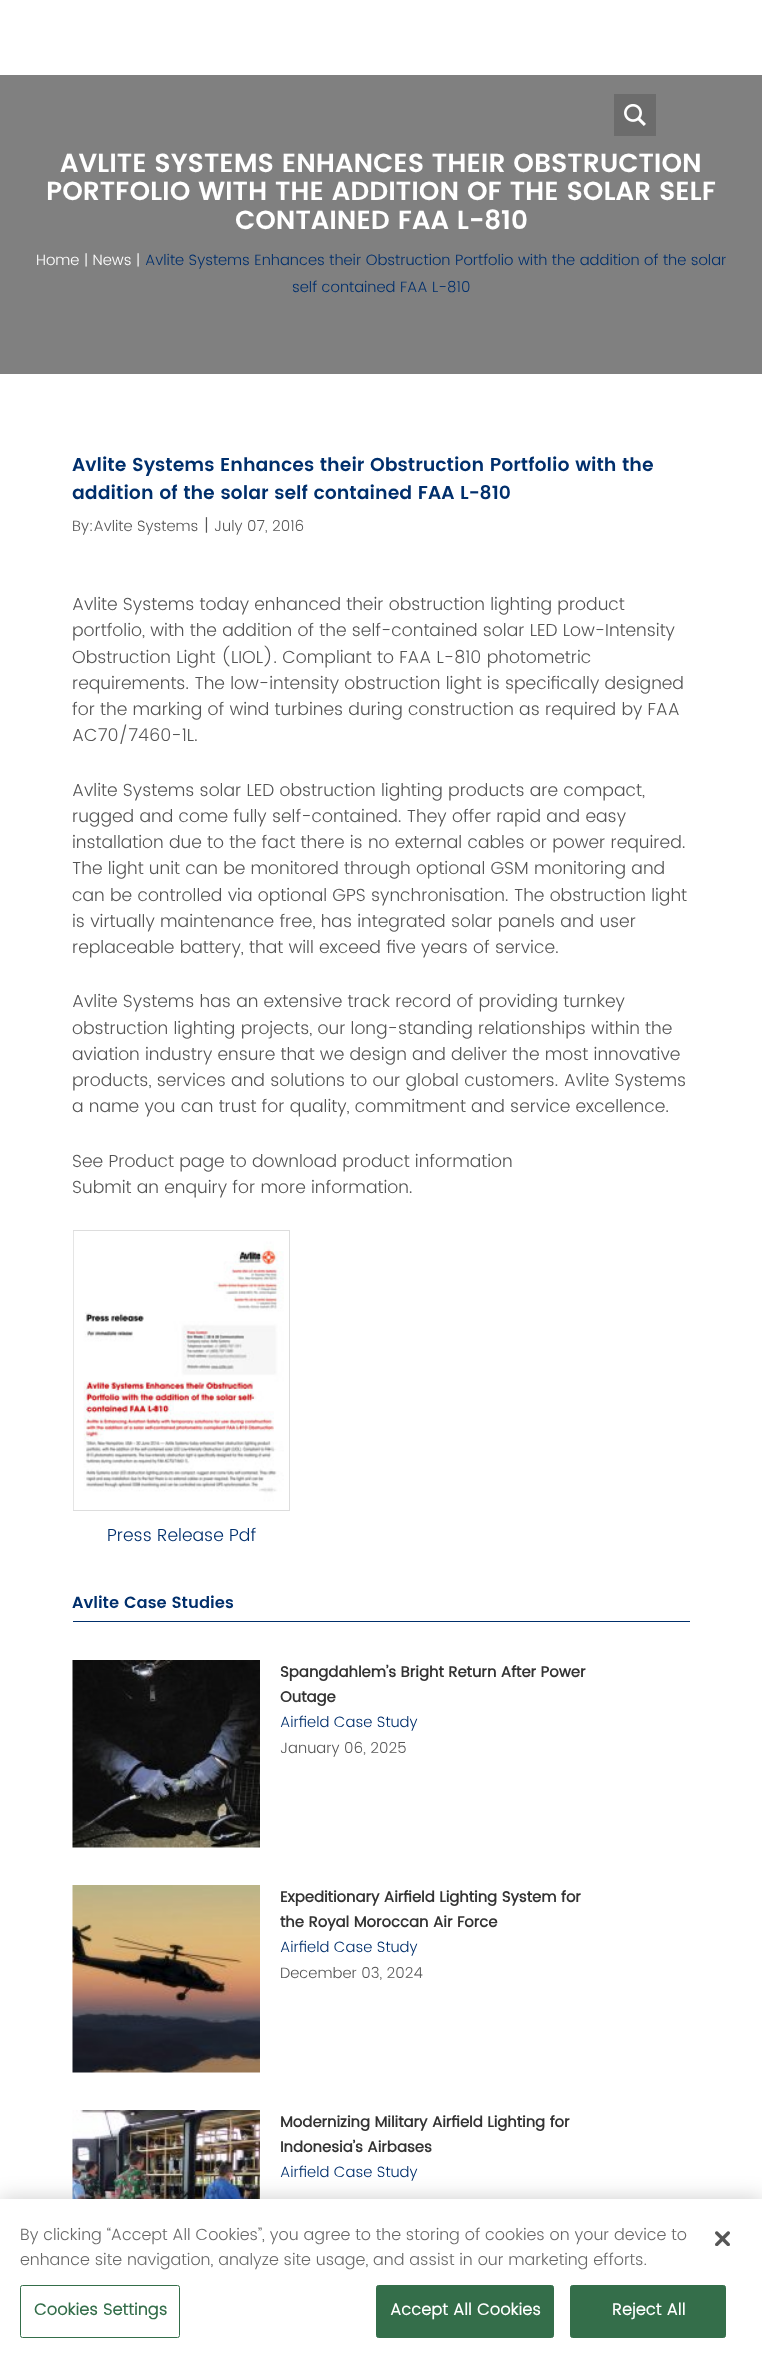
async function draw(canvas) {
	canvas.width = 762;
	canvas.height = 2361;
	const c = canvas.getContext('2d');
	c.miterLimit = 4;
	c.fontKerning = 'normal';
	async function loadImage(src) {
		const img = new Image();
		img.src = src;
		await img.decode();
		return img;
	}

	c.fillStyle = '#fff';
	c.fillRect(0, 0, 762, 2361);
	c.fillStyle = '#808080';
	c.fillRect(0, 75, 762, 299);
	c.fillStyle = '#6c6c6c';
	c.fillRect(614, 94, 42, 42);
	c.drawImage(await loadImage('img1.png'), 624, 104, 22, 22);
	c.font = '600 26.25px Poppins';
	c.fillStyle = '#fff';
	for (const [text, x, y] of [
		['AVLITE SYSTEMS ENHANCES THEIR OBSTRUCTION', 60, 172],
		['PORTFOLIO WITH THE ADDITION OF THE SOLAR SELF', 46, 200],
		['CONTAINED FAA L-810', 235, 229],
	]) {
		c.fillText(text, x, y);
	}
	c.font = '300 15px Poppins';
	c.fillText('Home | News |', 36, 265);
	c.fillStyle = '#002f6c';
	c.fillText('Avlite Systems Enhances their Obstruction Portfolio with the addition of the solar', 145, 265);
	c.fillText('self contained FAA L-810', 292, 292);
	c.font = '600 18.75px Poppins';
	c.fillText('Avlite Systems Enhances their Obstruction Portfolio with the', 72, 471);
	c.fillText('addition of the solar self contained FAA L-810', 72, 499);
	c.font = '300 15px Poppins';
	c.fillStyle = '#555';
	c.fillText('By:Avlite Systems', 72, 531);
	c.font = '300 17.5px Poppins';
	c.fillText('|', 204, 531);
	c.font = '300 15px Poppins';
	c.fillText('July 07, 2016', 214, 531);
	c.font = '300 17.5px Poppins';
	for (const [text, x, y] of [
		['Avlite Systems today enhanced their obstruction lighting product', 72, 610],
		['portfolio, with the addition of the self-contained solar LED Low-Intensity', 72, 636],
		['Obstruction Light (LIOL). Compliant to FAA L-810 photometric', 72, 663],
		['requirements. The low-intensity obstruction light is specifically designed', 72, 689],
		['for the marking of wind turbines during construction as required by FAA', 72, 715],
		['AC70/7460-1L.', 72, 741],
		['Avlite Systems solar LED obstruction lighting products are compact,', 72, 796],
		['rugged and come fully self-contained. They offer rapid and easy', 72, 822],
		['installation due to the fact there is no external cables or power required.', 72, 848],
		['The light unit can be monitored through optional GSM monitoring and', 72, 874],
		['can be controlled via optional GPS synchronisation. The obstruction light', 72, 901],
		['is virtually maintenance free, has integrated solar panels and user', 72, 927],
		['replaceable battery, that will exceed five years of service.', 72, 953],
		['Avlite Systems has an extensive track record of providing turnkey', 72, 1007],
		['obstruction lighting projects, our long-standing relationships within the', 72, 1034],
		['aviation industry ensure that we design and deliver the most innovative', 72, 1060],
		['products, services and solutions to our global customers. Avlite Systems', 72, 1086],
		['a name you can trust for quality, commitment and service excellence.', 72, 1112],
		['See Product page to download product information', 72, 1167],
		['Submit an enquiry for more information.', 72, 1193],
	]) {
		c.fillText(text, x, y);
	}
	c.strokeStyle = '#ddd';
	c.strokeRect(73.5, 1230.5, 216, 280);
	c.drawImage(await loadImage('img2.png'), 73, 1231, 211, 279);
	c.fillStyle = '#002f6c';
	c.fillText('Press Release Pdf', 107, 1541);
	c.fillRect(73, 1621, 617, 1);
	c.font = '600 16.25px Poppins';
	c.fillText('Avlite Case Studies', 72, 1608);
	c.drawImage(await loadImage('img3.png'), 72, 1660, 188, 188);
	c.font = 'bold 15px Poppins';
	c.fillStyle = '#333';
	c.fillText('Spangdahlem’s Bright Return After Power', 280, 1677);
	c.fillText('Outage', 280, 1702);
	c.font = '300 15px Poppins';
	c.fillStyle = '#002f6c';
	c.fillText('Airfield Case Study', 280, 1727);
	c.fillStyle = '#555';
	c.fillText('January 06, 2025', 280, 1753);
	c.drawImage(await loadImage('img4.png'), 72, 1885, 188, 188);
	c.font = 'bold 15px Poppins';
	c.fillStyle = '#333';
	c.fillText('Expeditionary Airfield Lighting System for', 280, 1902);
	c.fillText('the Royal Moroccan Air Force', 280, 1927);
	c.font = '300 15px Poppins';
	c.fillStyle = '#002f6c';
	c.fillText('Airfield Case Study', 280, 1952);
	c.fillStyle = '#555';
	c.fillText('December 03, 2024', 280, 1978);
	c.drawImage(await loadImage('img5.png'), 72, 2110, 188, 89);
	c.font = 'bold 15px Poppins';
	c.fillStyle = '#333';
	c.fillText('Modernizing Military Airfield Lighting for', 280, 2127);
	c.fillText('Indonesia’s Airbases', 280, 2152);
	c.font = '300 15px Poppins';
	c.fillStyle = '#002f6c';
	c.fillText('Airfield Case Study', 280, 2177);
	c.fillStyle = '#00000033';
	c.filter = 'blur(11px)';
	c.beginPath();
	c.rect(0, 2199, 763, 162);
	c.fill();
	c.filter = 'none';
	c.fillStyle = '#fff';
	c.fillRect(0, 2199, 762, 162);
	c.font = '300 16.25px Poppins';
	c.fillStyle = '#696969';
	c.fillText('By clicking “Accept All Cookies”, you agree to the storing of cookies on your device to', 20, 2240);
	c.fillText('enhance site navigation, analyze site usage, and assist in our marketing efforts.', 20, 2265);
	c.beginPath();
	c.roundRect(20.5, 2285.5, 159, 52, 2);
	c.strokeStyle = '#346e4a';
	c.stroke();
	c.letterSpacing = '0.2px';
	c.font = 'bold 16.25px "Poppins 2"';
	c.fillStyle = '#346e4a';
	c.fillText('Cookies Settings', 34, 2315);
	c.beginPath();
	c.roundRect(376.5, 2285.5, 177, 52, 2);
	c.fill();
	c.stroke();
	c.fillStyle = '#fff';
	c.fillText('Accept All Cookies', 390, 2315);
	c.fillStyle = '#346e4a';
	c.beginPath();
	c.roundRect(570.5, 2285.5, 155, 52, 2);
	c.fill();
	c.stroke();
	c.fillStyle = '#fff';
	c.fillText('Reject All', 612, 2315);
	c.drawImage(await loadImage('img6.png'), 715, 2231, 15, 15);
}

draw(document.querySelector('canvas'));
